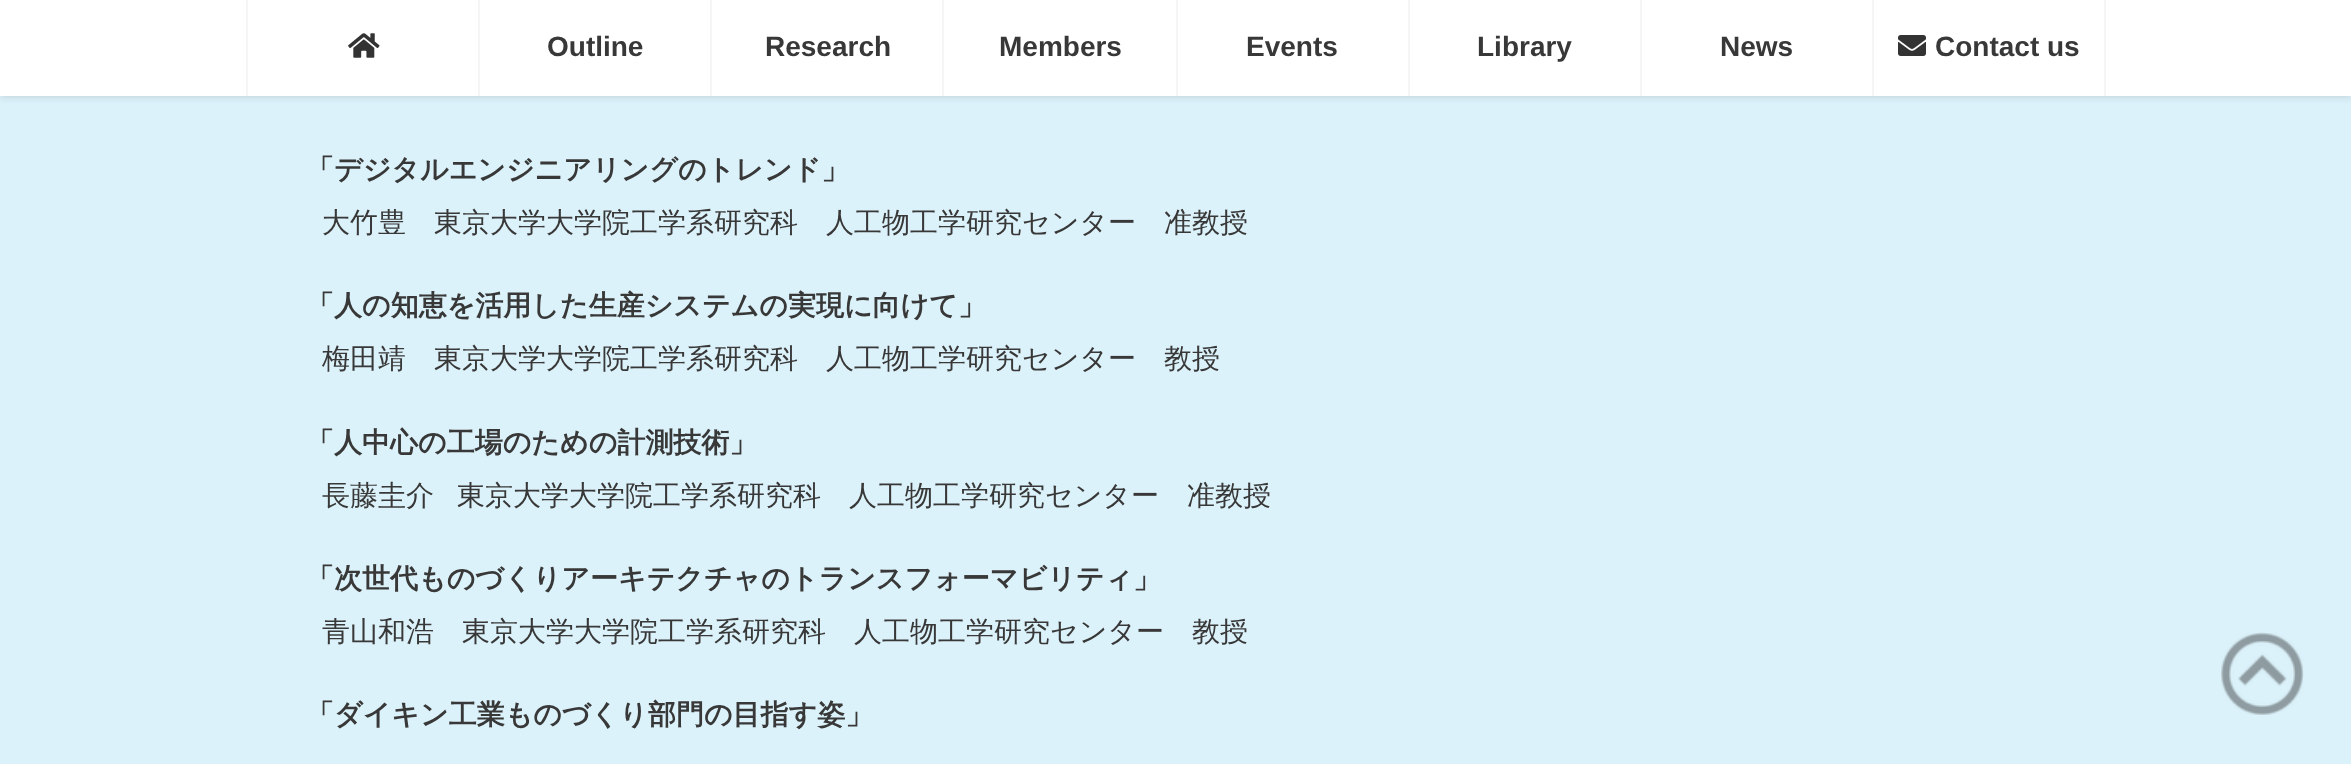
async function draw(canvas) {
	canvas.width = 2351;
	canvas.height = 764;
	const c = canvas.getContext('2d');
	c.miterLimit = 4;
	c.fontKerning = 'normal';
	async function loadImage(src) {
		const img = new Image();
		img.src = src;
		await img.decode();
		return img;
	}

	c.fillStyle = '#dcf2fa';
	c.fillRect(0, 0, 2351, 764);
	c.fillStyle = '#0000001a';
	c.filter = 'blur(3px)';
	c.beginPath();
	c.rect(0, 2, 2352, 96);
	c.fill();
	c.filter = 'none';
	c.fillStyle = '#fff';
	c.fillRect(0, 0, 2351, 96);
	c.fillStyle = '#f5f5f5';
	c.fillRect(246, 0, 2, 96);
	c.drawImage(await loadImage('img1.png'), 348, 33, 32, 25);
	c.fillRect(478, 0, 2, 96);
	c.font = 'bold 28px Liberation Sans';
	c.fillStyle = '#383838';
	c.fillText('Outline', 547, 56);
	c.fillStyle = '#f5f5f5';
	c.fillRect(710, 0, 2, 96);
	c.fillStyle = '#383838';
	c.fillText('Research', 765, 56);
	c.fillStyle = '#f5f5f5';
	c.fillRect(942, 0, 2, 96);
	c.fillStyle = '#383838';
	c.fillText('Members', 999, 56);
	c.fillStyle = '#f5f5f5';
	c.fillRect(1176, 0, 2, 96);
	c.fillStyle = '#383838';
	c.fillText('Events', 1246, 56);
	c.fillStyle = '#f5f5f5';
	c.fillRect(1408, 0, 2, 96);
	c.fillStyle = '#383838';
	c.fillText('Library', 1477, 56);
	c.fillStyle = '#f5f5f5';
	c.fillRect(1640, 0, 2, 96);
	c.fillStyle = '#383838';
	c.fillText('News', 1720, 56);
	c.fillStyle = '#f5f5f5';
	c.fillRect(2104, 0, 2, 96);
	c.fillRect(1872, 0, 2, 96);
	c.drawImage(await loadImage('img2.png'), 1898, 35, 28, 21);
	c.fillStyle = '#383838';
	c.fillText('Contact us', 1935, 56);
	c.font = 'bold 28px WenQuanYi Zen Hei';
	c.fillText('「デジタルエンジニアリングのトレンド」', 306, 179);
	c.font = '500 28px WenQuanYi Zen Hei';
	c.fillText('大竹豊　東京大学大学院工学系研究科　人工物工学研究センター　准教授', 322, 232);
	c.font = 'bold 28px WenQuanYi Zen Hei';
	c.fillText('「人の知恵を活用した生産システムの実現に向けて」', 306, 315);
	c.font = '500 28px WenQuanYi Zen Hei';
	c.fillText('梅田靖　東京大学大学院工学系研究科　人工物工学研究センター　教授', 322, 368);
	c.font = 'bold 28px WenQuanYi Zen Hei';
	c.fillText('「人中心の工場のための計測技術」', 306, 452);
	c.font = '500 28px WenQuanYi Zen Hei';
	c.fillText('長藤圭介', 322, 505);
	c.fillText('東京大学大学院工学系研究科　人工物工学研究センター　准教授', 457, 505);
	c.font = 'bold 28px WenQuanYi Zen Hei';
	c.fillText('「次世代ものづくりアーキテクチャのトランスフォーマビリティ」', 306, 588);
	c.font = '500 28px WenQuanYi Zen Hei';
	c.fillText('青山和浩　東京大学大学院工学系研究科　人工物工学研究センター　教授', 322, 641);
	c.font = 'bold 28px WenQuanYi Zen Hei';
	c.fillText('「ダイキン工業ものづくり部門の目指す姿」', 306, 724);
	c.drawImage(await loadImage('img3.png'), 2221, 632, 83, 83);
}

draw(document.querySelector('canvas'));
